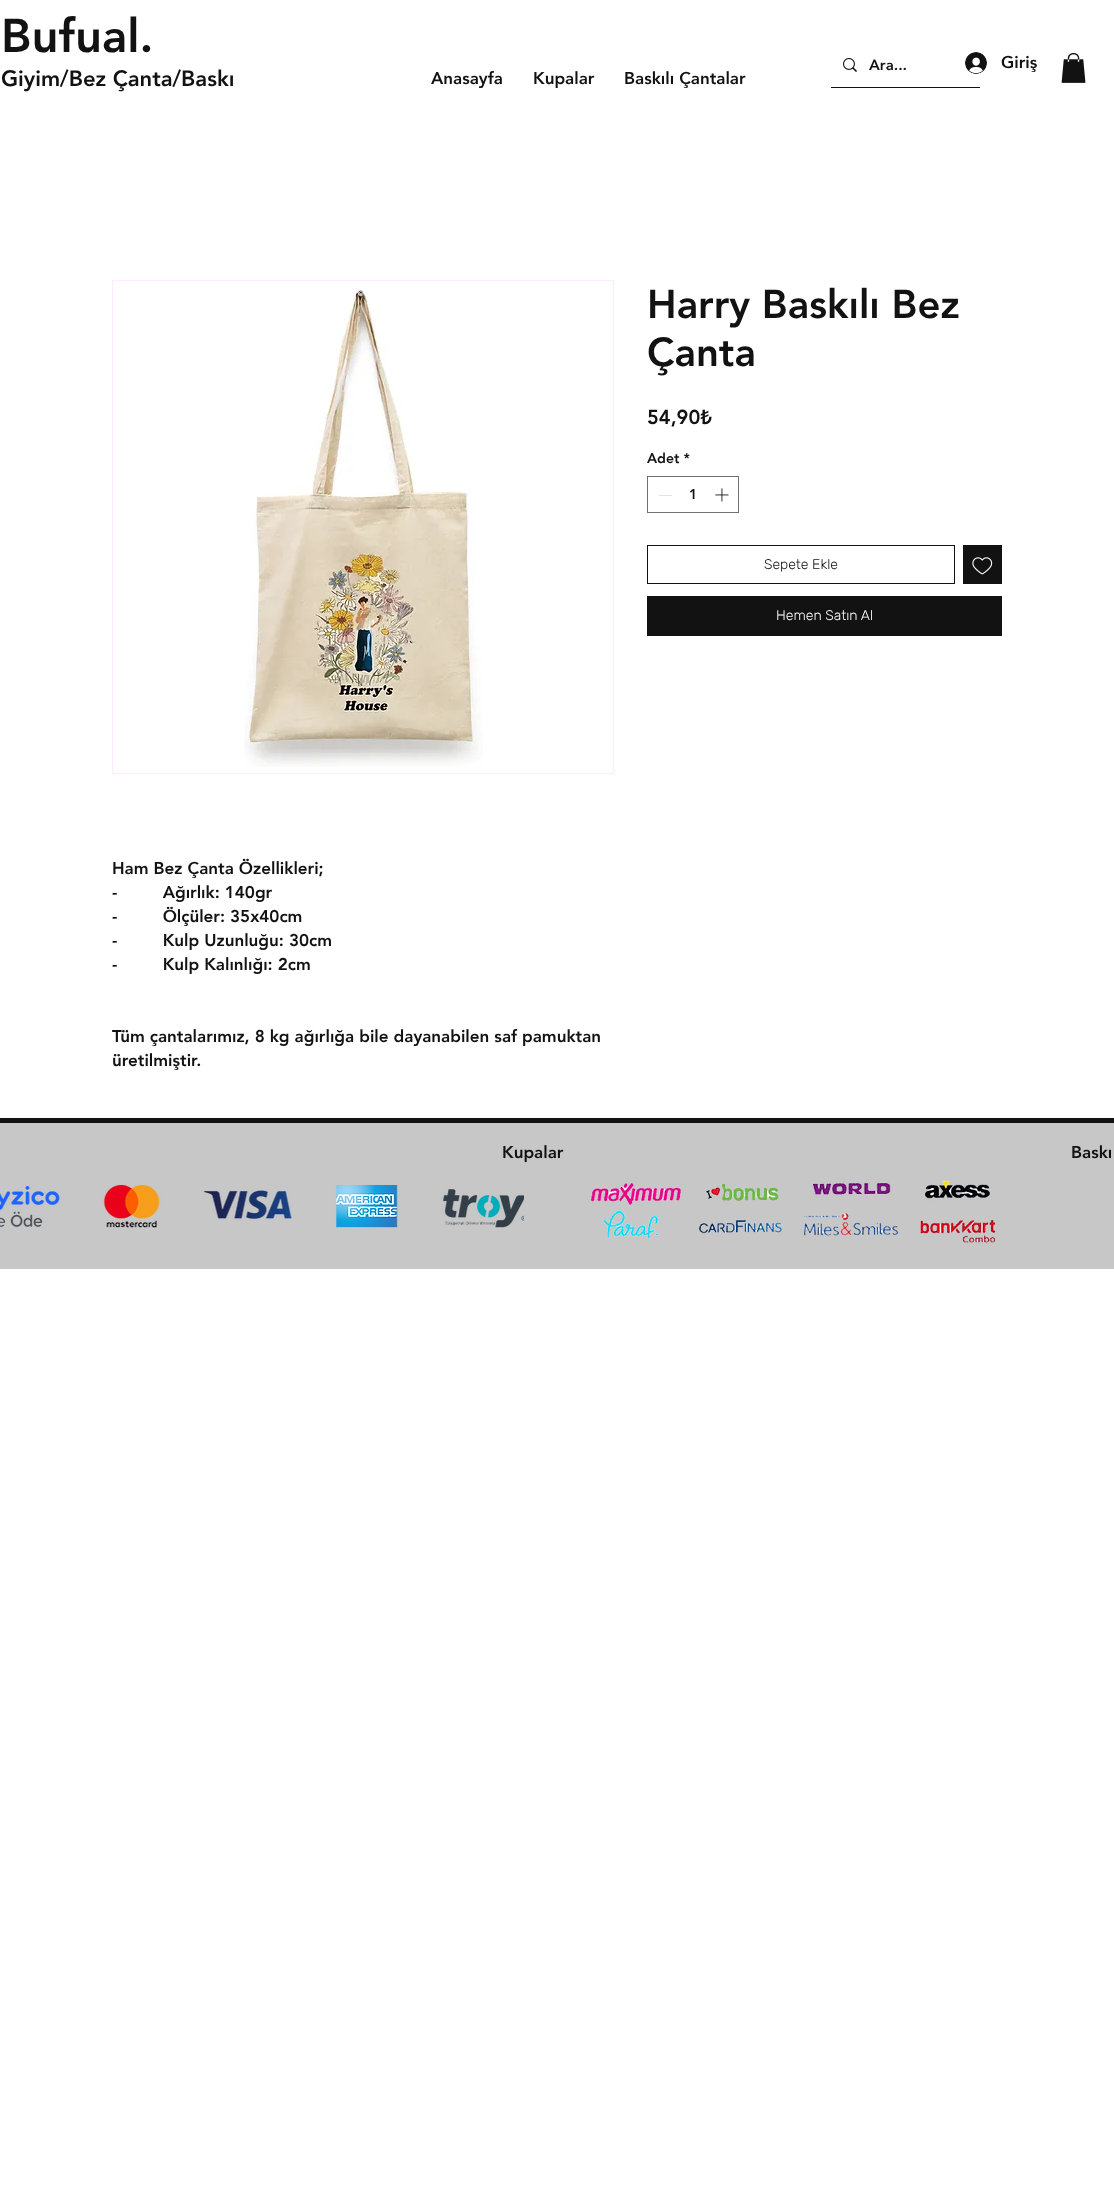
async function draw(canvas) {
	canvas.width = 1114;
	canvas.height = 2206;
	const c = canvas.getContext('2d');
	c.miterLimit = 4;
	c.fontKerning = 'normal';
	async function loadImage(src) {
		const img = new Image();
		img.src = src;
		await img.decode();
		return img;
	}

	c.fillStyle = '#fff';
	c.fillRect(0, 0, 1114, 2206);
	c.font = '900 47px "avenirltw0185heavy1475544"';
	c.fillStyle = '#121212';
	c.fillText('Bufual.', 1, 52);
	c.font = '900 22px "avenirltw0185heavy1475544"';
	c.fillText('Giyim/Bez Çanta/Baskı', 1, 86);
	c.fillRect(831, 87, 149, 1);
	c.drawImage(await loadImage('img1.png'), 843, 58, 14, 14);
	c.font = '900 15px "avenirltw0185heavy1475544"';
	c.fillText('Ara...', 869, 70);
	c.drawImage(await loadImage('img2.png'), 965, 52, 22, 22);
	c.font = '900 17px "avenirltw0185heavy1475544"';
	c.fillText('Giriş', 1001, 68);
	c.drawImage(await loadImage('img3.png'), 1061, 53, 25, 30);
	for (const [text, x, y] of [
		['Anasayfa', 431, 84],
		['Kupalar', 533, 84],
		['Baskılı Çantalar', 624, 84],
	]) {
		c.fillText(text, x, y);
	}
	c.font = '900 40px "avenirltw0185heavy1475544"';
	c.fillText('Harry Baskılı Bez', 647, 318);
	c.fillText('Çanta', 647, 366);
	c.font = '900 20px "avenirltw0185heavy1475544"';
	c.fillText('54,90₺', 647, 424);
	c.font = '900 14px "avenirltw0185heavy1475544"';
	c.fillText('Adet *', 647, 463);
	c.strokeStyle = '#717171';
	c.strokeRect(647.5, 476.5, 91, 36);
	c.fillStyle = '#e3e3e3';
	c.fillRect(659, 495, 13, 1);
	c.fillStyle = '#121212';
	c.fillText('1', 689, 499);
	c.drawImage(await loadImage('img4.png'), 715, 488, 14, 14);
	c.strokeStyle = '#121212';
	c.strokeRect(647.5, 545.5, 307, 38);
	c.font = '300 14px Rubik';
	c.fillText('Sepete Ekle', 764, 569);
	c.fillRect(963, 545, 39, 39);
	c.drawImage(await loadImage('img5.png'), 972, 557, 21, 18);
	c.fillRect(647, 596, 355, 40);
	c.fillStyle = '#fff';
	c.fillText('Hemen Satın Al', 776, 620);
	c.strokeStyle = '#ffebff';
	c.strokeRect(112.5, 280.5, 501, 493);
	c.drawImage(await loadImage('img6.png'), 244, 289, 239, 478);
	c.font = '900 17px "avenirltw0185heavy1475544"';
	c.fillStyle = '#121212';
	for (const [text, x, y] of [
		['Ham Bez Çanta Özellikleri;', 112, 874],
		['-         Ağırlık: 140gr', 112, 898],
		['-         Ölçüler: 35x40cm', 112, 922],
		['-         Kulp Uzunluğu: 30cm', 112, 946],
		['-         Kulp Kalınlığı: 2cm', 112, 970],
		['Tüm çantalarımız, 8 kg ağırlığa bile dayanabilen saf pamuktan', 112, 1042],
		['üretilmiştir.', 112, 1066],
	]) {
		c.fillText(text, x, y);
	}
	c.fillStyle = '#c7c7c7';
	c.fillRect(0, 1123, 1114, 146);
	c.fillStyle = '#121212';
	c.fillRect(0, 1118, 1114, 5);
	c.fillText('Kupalar', 502, 1158);
	c.fillText('Baskı', 1071, 1158);
	c.drawImage(await loadImage('img7.png'), 0, 1185, 524, 43);
	c.drawImage(await loadImage('img8.png'), 590, 1180, 406, 63);
}

draw(document.querySelector('canvas'));
